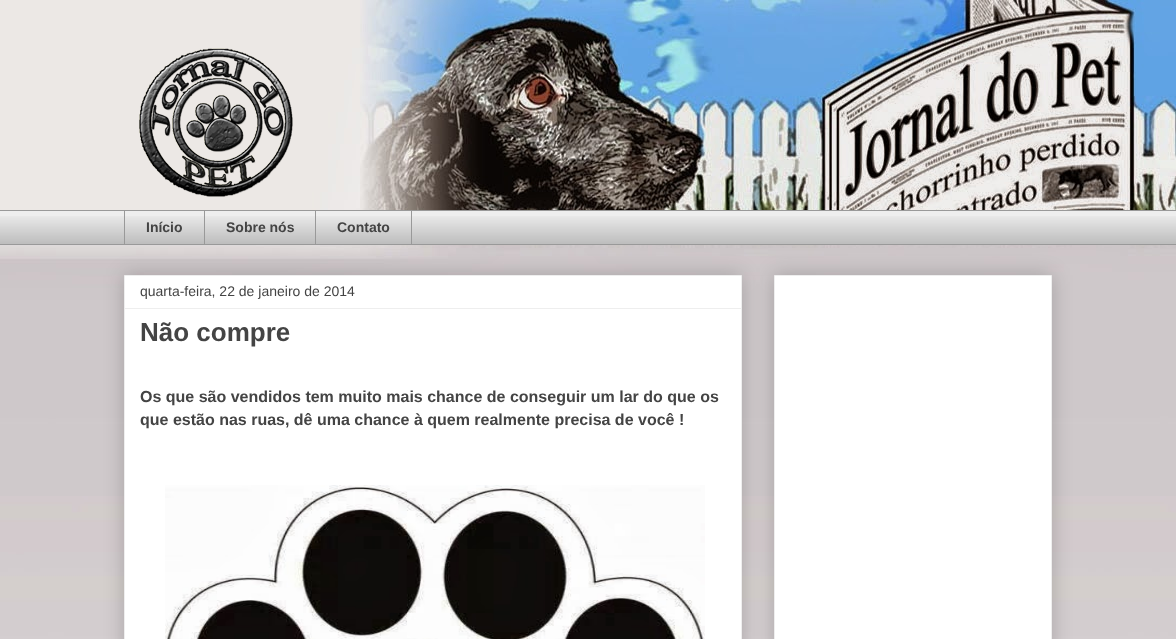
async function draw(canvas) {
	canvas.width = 1176;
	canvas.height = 639;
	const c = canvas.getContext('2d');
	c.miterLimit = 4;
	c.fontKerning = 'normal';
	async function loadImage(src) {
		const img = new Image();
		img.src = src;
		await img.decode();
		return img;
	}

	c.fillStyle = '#fff';
	c.fillRect(0, 0, 1176, 639);
	c.drawImage(await loadImage('img1.png'), 0, 0, 1176, 639);
	c.drawImage(await loadImage('img2.png'), 139, 48, 154, 149);
	c.fillStyle = '#eee';
	c.fillRect(0, 211, 1176, 33);
	c.drawImage(await loadImage('img3.png'), 0, 216, 1176, 28);
	c.fillStyle = '#999';
	c.fillRect(0, 210, 1176, 1);
	c.fillRect(124, 210, 1, 35);
	c.font = 'bold 14px Liberation Sans';
	c.fillStyle = '#444';
	c.fillText('Início', 146, 232);
	c.fillStyle = '#999';
	c.fillRect(204, 210, 1, 35);
	c.fillStyle = '#444';
	c.fillText('Sobre nós', 226, 232);
	c.strokeStyle = '#999';
	c.strokeRect(315.5, 210.5, 96, 34);
	c.fillText('Contato', 337, 232);
	c.fillStyle = '#999';
	c.fillRect(0, 244, 1176, 1);
	c.fillStyle = '#00000033';
	c.filter = 'blur(10px)';
	c.beginPath();
	c.rect(124, 275, 618, 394);
	c.fill();
	c.filter = 'none';
	c.fillStyle = '#fff';
	c.beginPath();
	c.rect(124.5, 275.5, 617, 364);
	c.fill();
	c.strokeStyle = '#eee';
	c.stroke();
	c.font = '14px Liberation Sans';
	c.fillStyle = '#444';
	c.fillText('quarta-feira, 22 de janeiro de 2014', 140, 296);
	c.fillStyle = '#eee';
	c.fillRect(125, 308, 616, 1);
	c.font = 'bold 26px Liberation Sans';
	c.fillStyle = '#444';
	c.fillText('Não compre', 140, 341);
	c.font = 'bold 16px Liberation Sans';
	c.fillText('Os que são vendidos tem muito mais chance de conseguir um lar do que os', 140, 402);
	c.fillText('que estão nas ruas, dê uma chance à quem realmente precisa de você !', 140, 425);
	c.drawImage(await loadImage('img4.png'), 165, 485, 540, 154);
	c.fillStyle = '#00000033';
	c.filter = 'blur(10px)';
	c.beginPath();
	c.rect(774, 275, 278, 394);
	c.fill();
	c.filter = 'none';
	c.fillStyle = '#fff';
	c.beginPath();
	c.rect(774.5, 275.5, 277, 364);
	c.fill();
	c.stroke();
}

draw(document.querySelector('canvas'));
